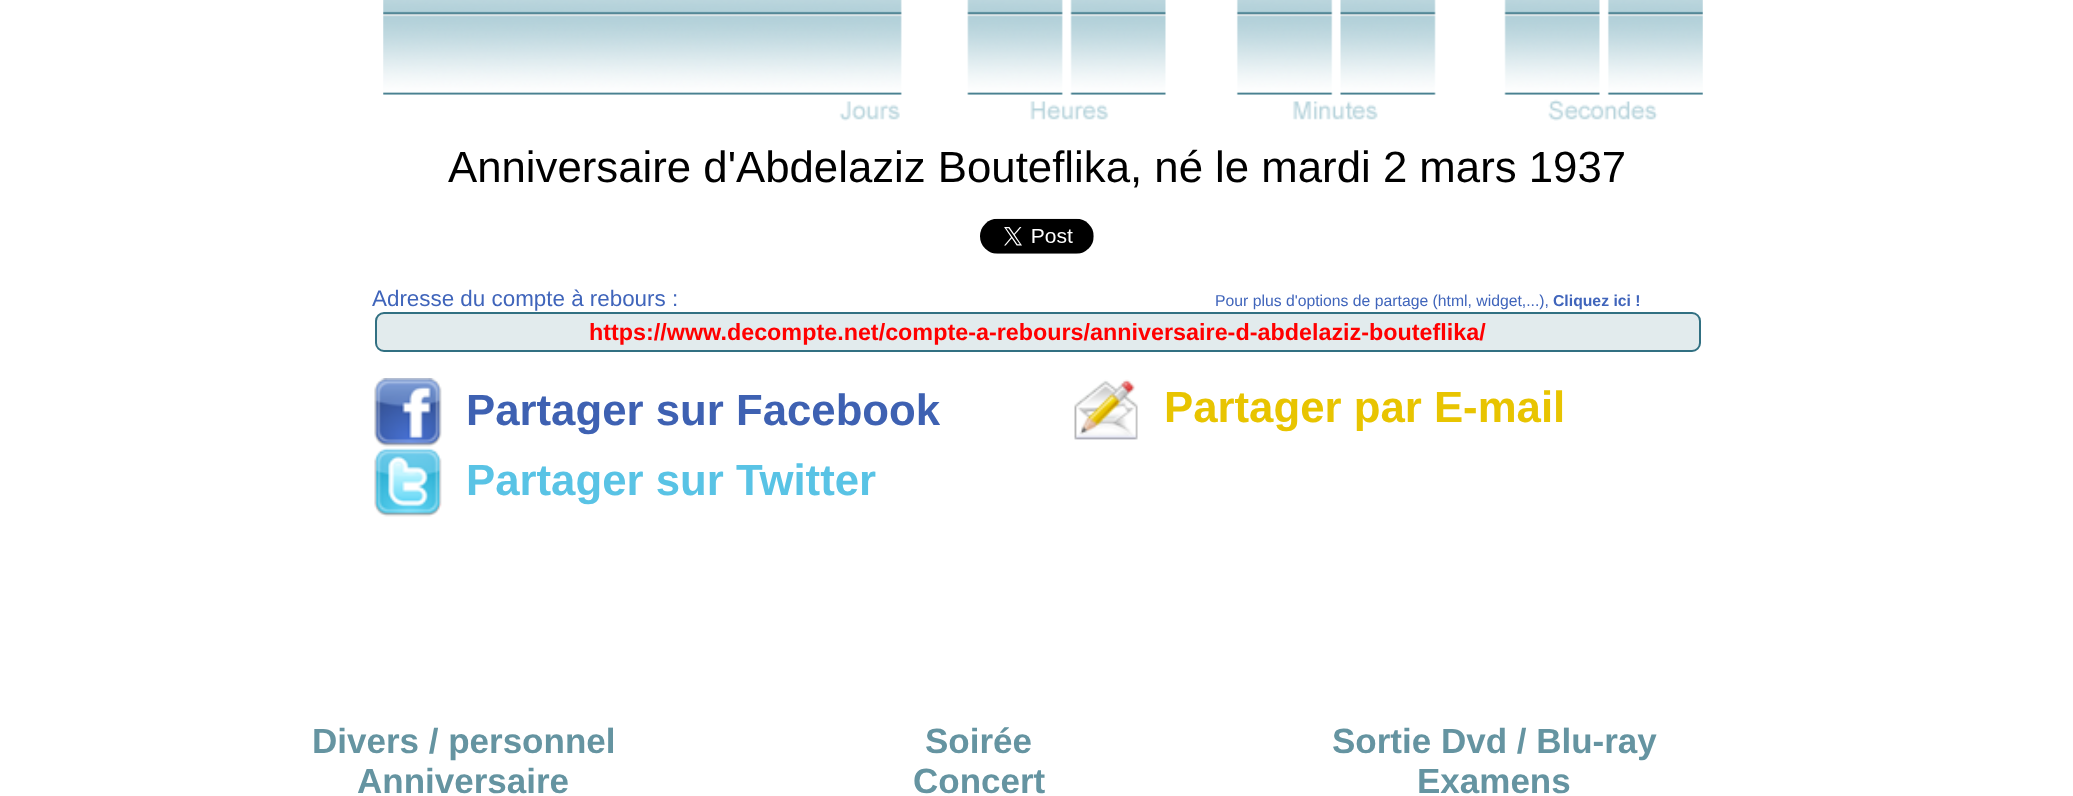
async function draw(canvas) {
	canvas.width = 2073;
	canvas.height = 796;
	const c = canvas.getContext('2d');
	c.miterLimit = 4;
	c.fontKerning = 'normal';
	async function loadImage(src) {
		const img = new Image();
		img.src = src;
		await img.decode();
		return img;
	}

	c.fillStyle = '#fff';
	c.fillRect(0, 0, 2073, 796);
	c.drawImage(await loadImage('img1.png'), 383, 0, 1320, 121);
	c.font = '43.75px Liberation Sans';
	c.fillStyle = '#000';
	c.fillText('Anniversaire d\'Abdelaziz Bouteflika, né le mardi 2 mars 1937', 448, 182);
	c.drawImage(await loadImage('img2.png'), 980, 218, 114, 36);
	c.font = '22.4px Liberation Sans';
	c.fillStyle = '#4065bb';
	c.fillText('Adresse du compte à rebours :', 372, 306);
	c.font = '15.75px Liberation Sans';
	c.fillText('Pour plus d\'options de partage (html, widget,...),', 1215, 306);
	c.font = 'bold 15.75px Liberation Sans';
	c.fillText('Cliquez ici !', 1553, 306);
	c.fillStyle = '#e2ebed';
	c.beginPath();
	c.roundRect(376, 313, 1324, 38, 8);
	c.fill();
	c.strokeStyle = '#317082';
	c.lineWidth = 2;
	c.stroke();
	c.font = 'bold 23.35px Liberation Sans';
	c.fillStyle = '#f00';
	c.fillText('https://www.decompte.net/compte-a-rebours/anniversaire-d-abdelaziz-bouteflika/', 589, 340);
	c.drawImage(await loadImage('img3.png'), 374, 378, 68, 69);
	c.font = 'bold 43.75px Liberation Sans';
	c.fillStyle = '#3e61b2';
	c.fillText('Partager sur Facebook', 466, 425);
	c.drawImage(await loadImage('img4.png'), 374, 448, 68, 69);
	c.fillStyle = '#59c3e5';
	c.fillText('Partager sur Twitter', 466, 495);
	c.drawImage(await loadImage('img5.png'), 1074, 379, 64, 61);
	c.fillStyle = '#e8c400';
	c.fillText('Partager par E-mail', 1164, 422);
	c.font = 'bold 35px Liberation Sans';
	c.fillStyle = '#6594a1';
	for (const [text, x, y] of [
		['Divers / personnel', 312, 753],
		['Anniversaire', 357, 793],
		['Soirée', 925, 753],
		['Concert', 913, 793],
		['Sortie Dvd / Blu-ray', 1332, 753],
		['Examens', 1417, 793],
	]) {
		c.fillText(text, x, y);
	}
}

draw(document.querySelector('canvas'));
